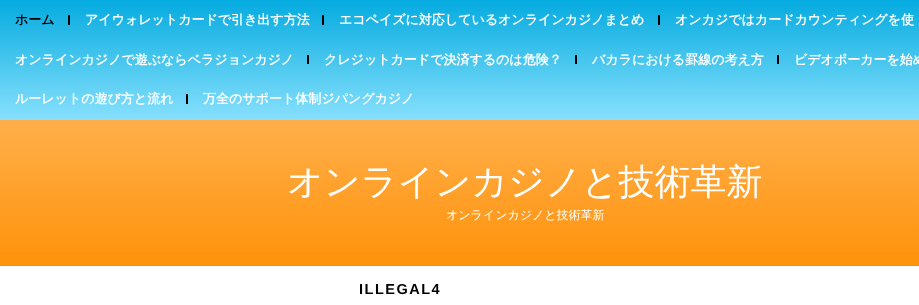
async function draw(canvas) {
	canvas.width = 919;
	canvas.height = 305;
	const c = canvas.getContext('2d');
	c.miterLimit = 4;
	c.fontKerning = 'normal';
	let gradient;

	c.fillStyle = '#fff';
	c.fillRect(0, 0, 919, 305);
	gradient = c.createLinearGradient(525, 0, 525, 120);
	gradient.addColorStop(0, '#05abe0');
	gradient.addColorStop(0.6, '#53cbf1');
	gradient.addColorStop(1, '#87e0fd');
	c.fillStyle = gradient;
	c.fillRect(0, 0, 919, 120);
	c.font = 'bold 13px WenQuanYi Zen Hei';
	c.fillStyle = '#000';
	c.fillText('ホーム', 15, 24);
	c.fillRect(68, 15, 2, 10);
	c.fillStyle = '#fff';
	c.fillText('アイウォレットカードで引き出す方法', 85, 24);
	c.fillStyle = '#000';
	c.fillRect(322, 15, 2, 10);
	c.fillStyle = '#fff';
	c.fillText('エコペイズに対応しているオンラインカジノまとめ', 339, 24);
	c.fillStyle = '#000';
	c.fillRect(658, 15, 2, 10);
	c.fillStyle = '#fff';
	c.fillText('オンカジではカードカウンティングを使', 675, 24);
	c.fillText('オンラインカジノで遊ぶならベラジョンカジノ', 15, 64);
	c.fillStyle = '#000';
	c.fillRect(307, 55, 2, 9);
	c.fillStyle = '#fff';
	c.fillText('クレジットカードで決済するのは危険？', 324, 64);
	c.fillStyle = '#000';
	c.fillRect(575, 55, 2, 9);
	c.fillStyle = '#fff';
	c.fillText('バカラにおける罫線の考え方', 592, 64);
	c.fillStyle = '#000';
	c.fillRect(777, 55, 2, 9);
	c.fillStyle = '#fff';
	c.fillText('ビデオポーカーを始め', 794, 64);
	c.fillText('ルーレットの遊び方と流れ', 15, 103);
	c.fillStyle = '#000';
	c.fillRect(186, 94, 2, 10);
	c.fillStyle = '#fff';
	c.fillText('万全のサポート体制ジパングカジノ', 203, 103);
	gradient = c.createLinearGradient(525, 120, 525, 266);
	gradient.addColorStop(0, '#ffaf4b');
	gradient.addColorStop(1, '#ff920a');
	c.fillStyle = gradient;
	c.fillRect(0, 120, 919, 146);
	c.font = '500 36px WenQuanYi Zen Hei';
	c.fillStyle = '#fff';
	c.fillText('オンラインカジノと技術革新', 287, 194);
	c.font = '500 12px WenQuanYi Zen Hei';
	c.fillText('オンラインカジノと技術革新', 446, 219);
	c.letterSpacing = '1.5px';
	c.font = 'bold 14.5px Liberation Sans';
	c.fillStyle = '#000';
	c.fillText('ILLEGAL4', 359, 294);
}

draw(document.querySelector('canvas'));
